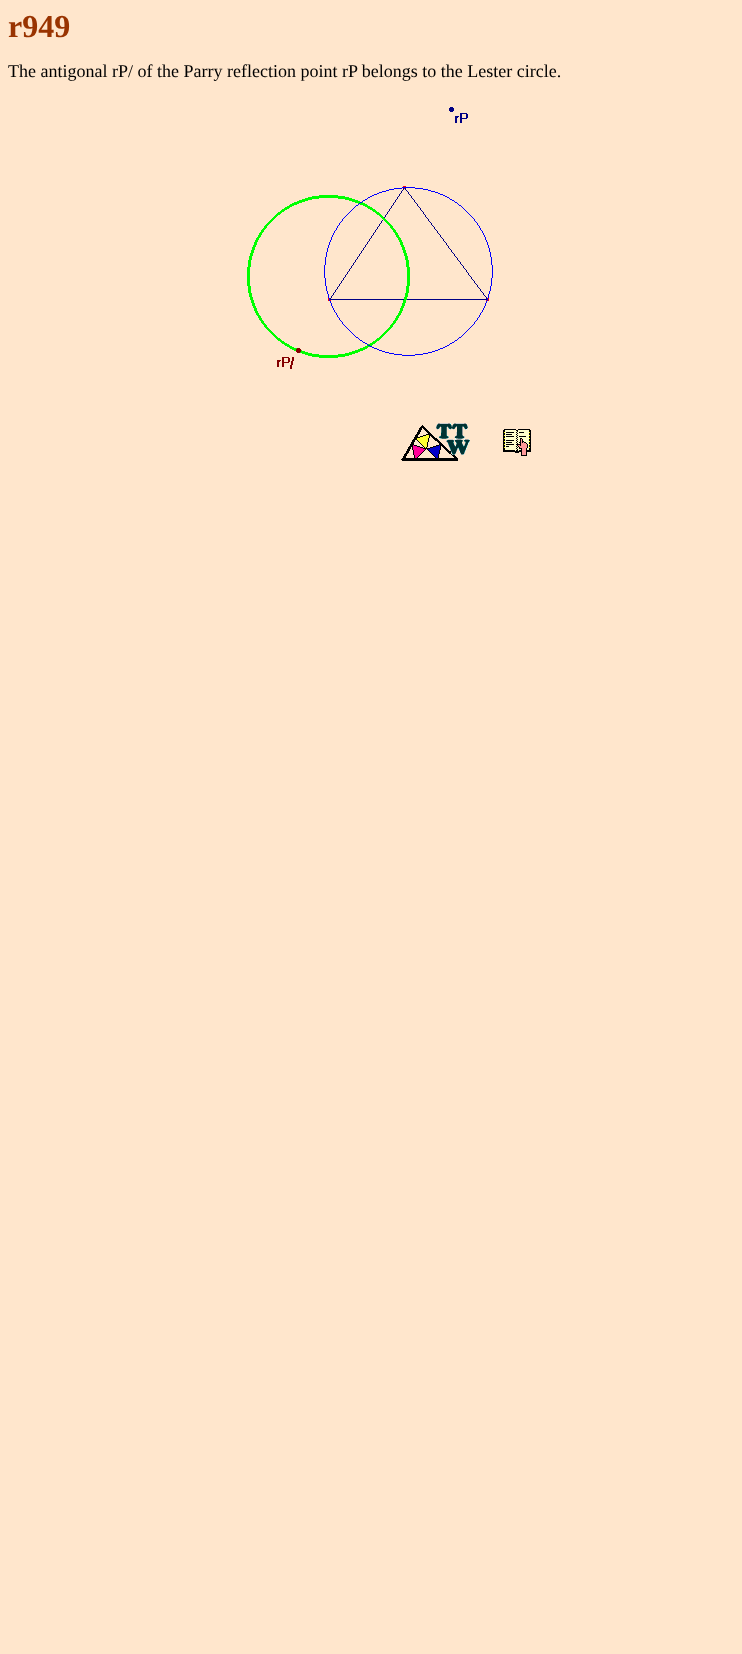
async function draw(canvas) {
	canvas.width = 742;
	canvas.height = 1654;
	const c = canvas.getContext('2d');
	c.miterLimit = 4;
	c.fontKerning = 'normal';
	async function loadImage(src) {
		const img = new Image();
		img.src = src;
		await img.decode();
		return img;
	}

	c.fillStyle = '#ffe6cc';
	c.fillRect(0, 0, 742, 1654);
	c.font = 'bold 32px Liberation Serif';
	c.fillStyle = '#930';
	c.fillText('r949', 8, 37);
	c.font = '18px Liberation Serif';
	c.fillStyle = '#000';
	c.fillText('The antigonal rP/ of the Parry reflection point rP belongs to the Lester circle.', 8, 77);
	c.drawImage(await loadImage('img1.png'), 247, 107, 246, 262);
	c.drawImage(await loadImage('img2.png'), 401, 423, 69, 38);
	c.drawImage(await loadImage('img3.png'), 503, 429, 28, 27);
}

draw(document.querySelector('canvas'));
